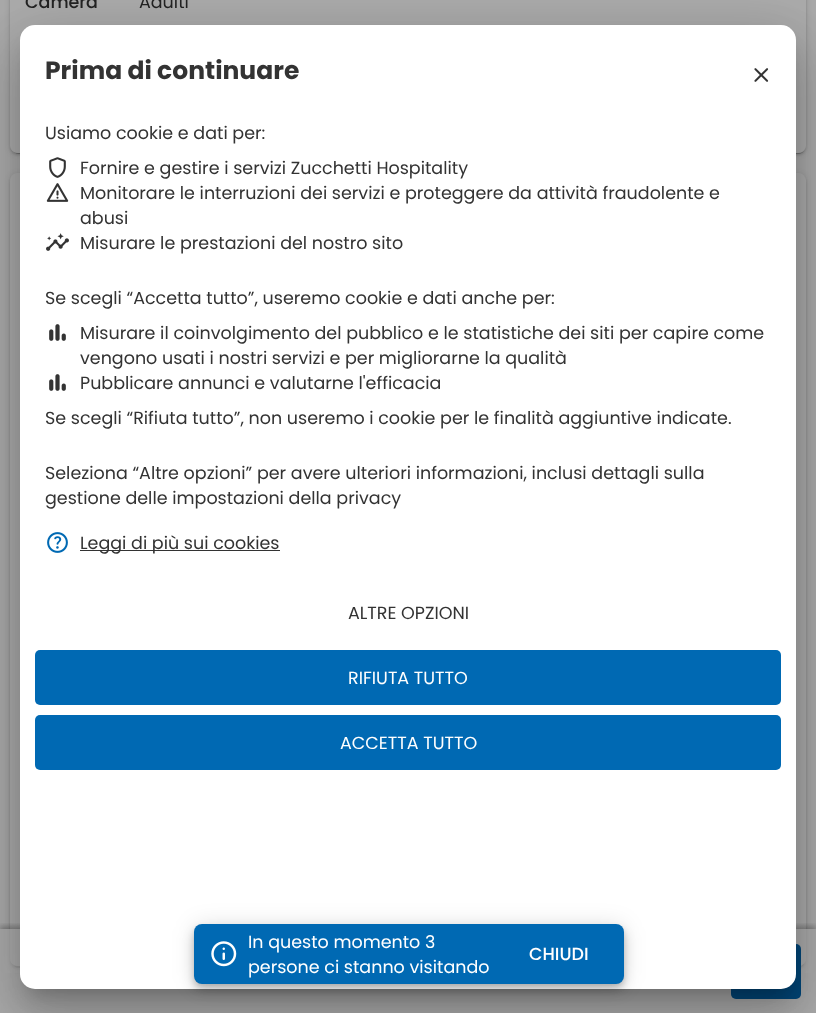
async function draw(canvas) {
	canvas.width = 816;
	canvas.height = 1013;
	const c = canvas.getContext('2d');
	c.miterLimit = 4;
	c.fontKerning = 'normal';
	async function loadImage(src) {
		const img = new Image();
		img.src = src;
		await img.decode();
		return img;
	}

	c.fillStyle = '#aaa';
	c.fillRect(0, 0, 816, 1013);
	c.save();
	c.beginPath();
	c.moveTo(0, 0);
	c.lineTo(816, 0);
	c.lineTo(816, 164);
	c.lineTo(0, 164);
	c.closePath();
	c.moveTo(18, -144);
	c.lineTo(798, -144);
	c.bezierCurveTo(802.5, -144, 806, -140.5, 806, -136);
	c.lineTo(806, 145);
	c.bezierCurveTo(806, 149.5, 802.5, 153, 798, 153);
	c.lineTo(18, 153);
	c.bezierCurveTo(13.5, 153, 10, 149.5, 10, 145);
	c.lineTo(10, -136);
	c.bezierCurveTo(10, -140.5, 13.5, -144, 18, -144);
	c.closePath();
	c.clip('evenodd');
	c.fillStyle = '#0000001f';
	c.filter = 'blur(3px)';
	c.beginPath();
	c.roundRect(10, -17, 796, 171, 8);
	c.fill();
	c.filter = 'none';
	c.restore();
	c.save();
	c.beginPath();
	c.moveTo(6, 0);
	c.lineTo(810, 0);
	c.lineTo(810, 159);
	c.lineTo(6, 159);
	c.closePath();
	c.moveTo(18, -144);
	c.lineTo(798, -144);
	c.bezierCurveTo(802.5, -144, 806, -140.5, 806, -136);
	c.lineTo(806, 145);
	c.bezierCurveTo(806, 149.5, 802.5, 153, 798, 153);
	c.lineTo(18, 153);
	c.bezierCurveTo(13.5, 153, 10, 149.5, 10, 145);
	c.lineTo(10, -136);
	c.bezierCurveTo(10, -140.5, 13.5, -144, 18, -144);
	c.closePath();
	c.clip('evenodd');
	c.fillStyle = '#00000024';
	c.filter = 'blur(1px)';
	c.beginPath();
	c.roundRect(10, -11, 796, 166, 8);
	c.fill();
	c.filter = 'none';
	c.restore();
	c.save();
	c.beginPath();
	c.moveTo(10, 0);
	c.lineTo(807, 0);
	c.lineTo(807, 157);
	c.lineTo(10, 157);
	c.closePath();
	c.moveTo(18, -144);
	c.lineTo(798, -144);
	c.bezierCurveTo(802.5, -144, 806, -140.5, 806, -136);
	c.lineTo(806, 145);
	c.bezierCurveTo(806, 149.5, 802.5, 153, 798, 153);
	c.lineTo(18, 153);
	c.bezierCurveTo(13.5, 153, 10, 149.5, 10, 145);
	c.lineTo(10, -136);
	c.bezierCurveTo(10, -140.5, 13.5, -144, 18, -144);
	c.closePath();
	c.clip('evenodd');
	c.fillStyle = '#00000033';
	c.filter = 'blur(0.5px)';
	c.beginPath();
	c.roundRect(13, -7, 791, 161, 5);
	c.fill();
	c.filter = 'none';
	c.restore();
	c.fillStyle = '#adadadb3';
	c.beginPath();
	c.roundRect(10, -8, 796, 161, 8);
	c.fill();
	c.font = '500 17.5px Poppins';
	c.fillStyle = '#232323';
	c.fillText('Camera', 25, 8);
	c.font = '17.5px Poppins';
	c.fillText('Adulti', 139, 8);
	c.save();
	c.beginPath();
	c.moveTo(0, 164);
	c.lineTo(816, 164);
	c.lineTo(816, 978);
	c.lineTo(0, 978);
	c.closePath();
	c.moveTo(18, 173);
	c.lineTo(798, 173);
	c.bezierCurveTo(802.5, 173, 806, 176.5, 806, 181);
	c.lineTo(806, 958);
	c.bezierCurveTo(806, 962.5, 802.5, 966, 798, 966);
	c.lineTo(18, 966);
	c.bezierCurveTo(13.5, 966, 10, 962.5, 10, 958);
	c.lineTo(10, 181);
	c.bezierCurveTo(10, 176.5, 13.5, 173, 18, 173);
	c.closePath();
	c.clip('evenodd');
	c.fillStyle = '#0000001f';
	c.filter = 'blur(3px)';
	c.beginPath();
	c.roundRect(10, 174, 796, 794, 8);
	c.fill();
	c.filter = 'none';
	c.restore();
	c.save();
	c.beginPath();
	c.moveTo(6, 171);
	c.lineTo(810, 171);
	c.lineTo(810, 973);
	c.lineTo(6, 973);
	c.closePath();
	c.moveTo(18, 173);
	c.lineTo(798, 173);
	c.bezierCurveTo(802.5, 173, 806, 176.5, 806, 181);
	c.lineTo(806, 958);
	c.bezierCurveTo(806, 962.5, 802.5, 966, 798, 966);
	c.lineTo(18, 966);
	c.bezierCurveTo(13.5, 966, 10, 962.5, 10, 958);
	c.lineTo(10, 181);
	c.bezierCurveTo(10, 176.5, 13.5, 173, 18, 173);
	c.closePath();
	c.clip('evenodd');
	c.fillStyle = '#00000024';
	c.filter = 'blur(1px)';
	c.beginPath();
	c.roundRect(10, 175, 796, 794, 8);
	c.fill();
	c.filter = 'none';
	c.restore();
	c.save();
	c.beginPath();
	c.moveTo(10, 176);
	c.lineTo(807, 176);
	c.lineTo(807, 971);
	c.lineTo(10, 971);
	c.closePath();
	c.moveTo(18, 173);
	c.lineTo(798, 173);
	c.bezierCurveTo(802.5, 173, 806, 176.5, 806, 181);
	c.lineTo(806, 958);
	c.bezierCurveTo(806, 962.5, 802.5, 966, 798, 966);
	c.lineTo(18, 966);
	c.bezierCurveTo(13.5, 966, 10, 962.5, 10, 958);
	c.lineTo(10, 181);
	c.bezierCurveTo(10, 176.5, 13.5, 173, 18, 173);
	c.closePath();
	c.clip('evenodd');
	c.fillStyle = '#00000033';
	c.filter = 'blur(0.5px)';
	c.beginPath();
	c.roundRect(13, 179, 791, 789, 5);
	c.fill();
	c.filter = 'none';
	c.restore();
	c.fillStyle = '#adadadb3';
	c.beginPath();
	c.roundRect(10, 173, 796, 793, 8);
	c.fill();
	c.save();
	c.beginPath();
	c.rect(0, 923, 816, 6);
	c.clip();
	c.fillStyle = '#00000040';
	c.filter = 'blur(2.5px)';
	c.beginPath();
	c.rect(0, 926, 816, 85);
	c.fill();
	c.filter = 'none';
	c.restore();
	c.fillRect(5, 929, 806, 44);
	c.fillStyle = '#00477a';
	c.beginPath();
	c.roundRect(731, 944, 70, 55, 5);
	c.fill();
	c.fillStyle = '#0000001f';
	c.filter = 'blur(29px)';
	c.beginPath();
	c.roundRect(10, 26, 796, 984, 25);
	c.fill();
	c.filter = 'none';
	c.fillStyle = '#00000024';
	c.filter = 'blur(24px)';
	c.beginPath();
	c.roundRect(16, 51, 784, 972, 19);
	c.fill();
	c.filter = 'none';
	c.fillStyle = '#00000033';
	c.filter = 'blur(9.5px)';
	c.beginPath();
	c.roundRect(29, 48, 759, 946, 6);
	c.fill();
	c.filter = 'none';
	c.fillStyle = '#fff';
	c.beginPath();
	c.roundRect(20, 25, 776, 964, 15);
	c.fill();
	c.font = 'bold 25px Poppins';
	c.fillStyle = '#333';
	c.fillText('Prima di continuare', 45, 79);
	c.drawImage(await loadImage('img1.png'), 754, 68, 15, 14);
	c.font = '17.5px Poppins';
	c.fillText('Usiamo cookie e dati per:', 45, 139);
	c.drawImage(await loadImage('img2.png'), 49, 157, 17, 21);
	c.fillText('Fornire e gestire i servizi Zucchetti Hospitality', 80, 174);
	c.drawImage(await loadImage('img3.png'), 46, 183, 23, 19);
	c.fillText('Monitorare le interruzioni dei servizi e proteggere da attività fraudolente e', 80, 199);
	c.fillText('abusi', 80, 224);
	c.drawImage(await loadImage('img4.png'), 46, 233, 23, 18);
	c.fillText('Misurare le prestazioni del nostro sito', 80, 249);
	c.fillText('Se scegli “Accetta tutto”, useremo cookie e dati anche per:', 45, 304);
	c.drawImage(await loadImage('img5.png'), 49, 324, 17, 17);
	c.fillText('Misurare il coinvolgimento del pubblico e le statistiche dei siti per capire come', 80, 339);
	c.fillText('vengono usati i nostri servizi e per migliorarne la qualità', 80, 364);
	c.drawImage(await loadImage('img5.png'), 49, 374, 17, 17);
	for (const [text, x, y] of [
		['Pubblicare annunci e valutarne l\'efficacia', 80, 389],
		['Se scegli “Rifiuta tutto”, non useremo i cookie per le finalità aggiuntive indicate.', 45, 424],
		['Seleziona “Altre opzioni” per avere ulteriori informazioni, inclusi dettagli sulla', 45, 479],
		['gestione delle impostazioni della privacy', 45, 504],
	]) {
		c.fillText(text, x, y);
	}
	c.drawImage(await loadImage('img6.png'), 47, 532, 21, 21);
	c.fillRect(80, 550, 200, 1);
	c.fillText('Leggi di più sui cookies', 80, 549);
	c.fillText('ALTRE OPZIONI', 348, 619);
	c.fillStyle = '#0069b3';
	c.beginPath();
	c.roundRect(35, 650, 746, 55, 5);
	c.fill();
	c.fillStyle = '#fff';
	c.fillText('RIFIUTA TUTTO', 348, 684);
	c.fillStyle = '#0069b3';
	c.beginPath();
	c.roundRect(35, 715, 746, 55, 5);
	c.fill();
	c.fillStyle = '#fff';
	c.fillText('ACCETTA TUTTO', 340, 749);
	c.fillStyle = '#0000001f';
	c.filter = 'blur(11px)';
	c.beginPath();
	c.roundRect(194, 925, 430, 60, 8);
	c.fill();
	c.filter = 'none';
	c.fillStyle = '#00000024';
	c.filter = 'blur(6px)';
	c.beginPath();
	c.roundRect(194, 931, 430, 60, 8);
	c.fill();
	c.filter = 'none';
	c.fillStyle = '#00000033';
	c.filter = 'blur(3px)';
	c.beginPath();
	c.roundRect(195, 929, 428, 57, 6);
	c.fill();
	c.filter = 'none';
	c.fillStyle = '#0069b3';
	c.beginPath();
	c.roundRect(194, 924, 430, 60, 8);
	c.fill();
	c.drawImage(await loadImage('img7.png'), 211, 941, 26, 26);
	c.fillStyle = '#fff';
	c.fillText('In questo momento 3', 248, 948);
	c.fillText('persone ci stanno visitando', 248, 973);
	c.font = '500 17.5px Poppins';
	c.fillText('CHIUDI', 529, 960);
}

draw(document.querySelector('canvas'));
